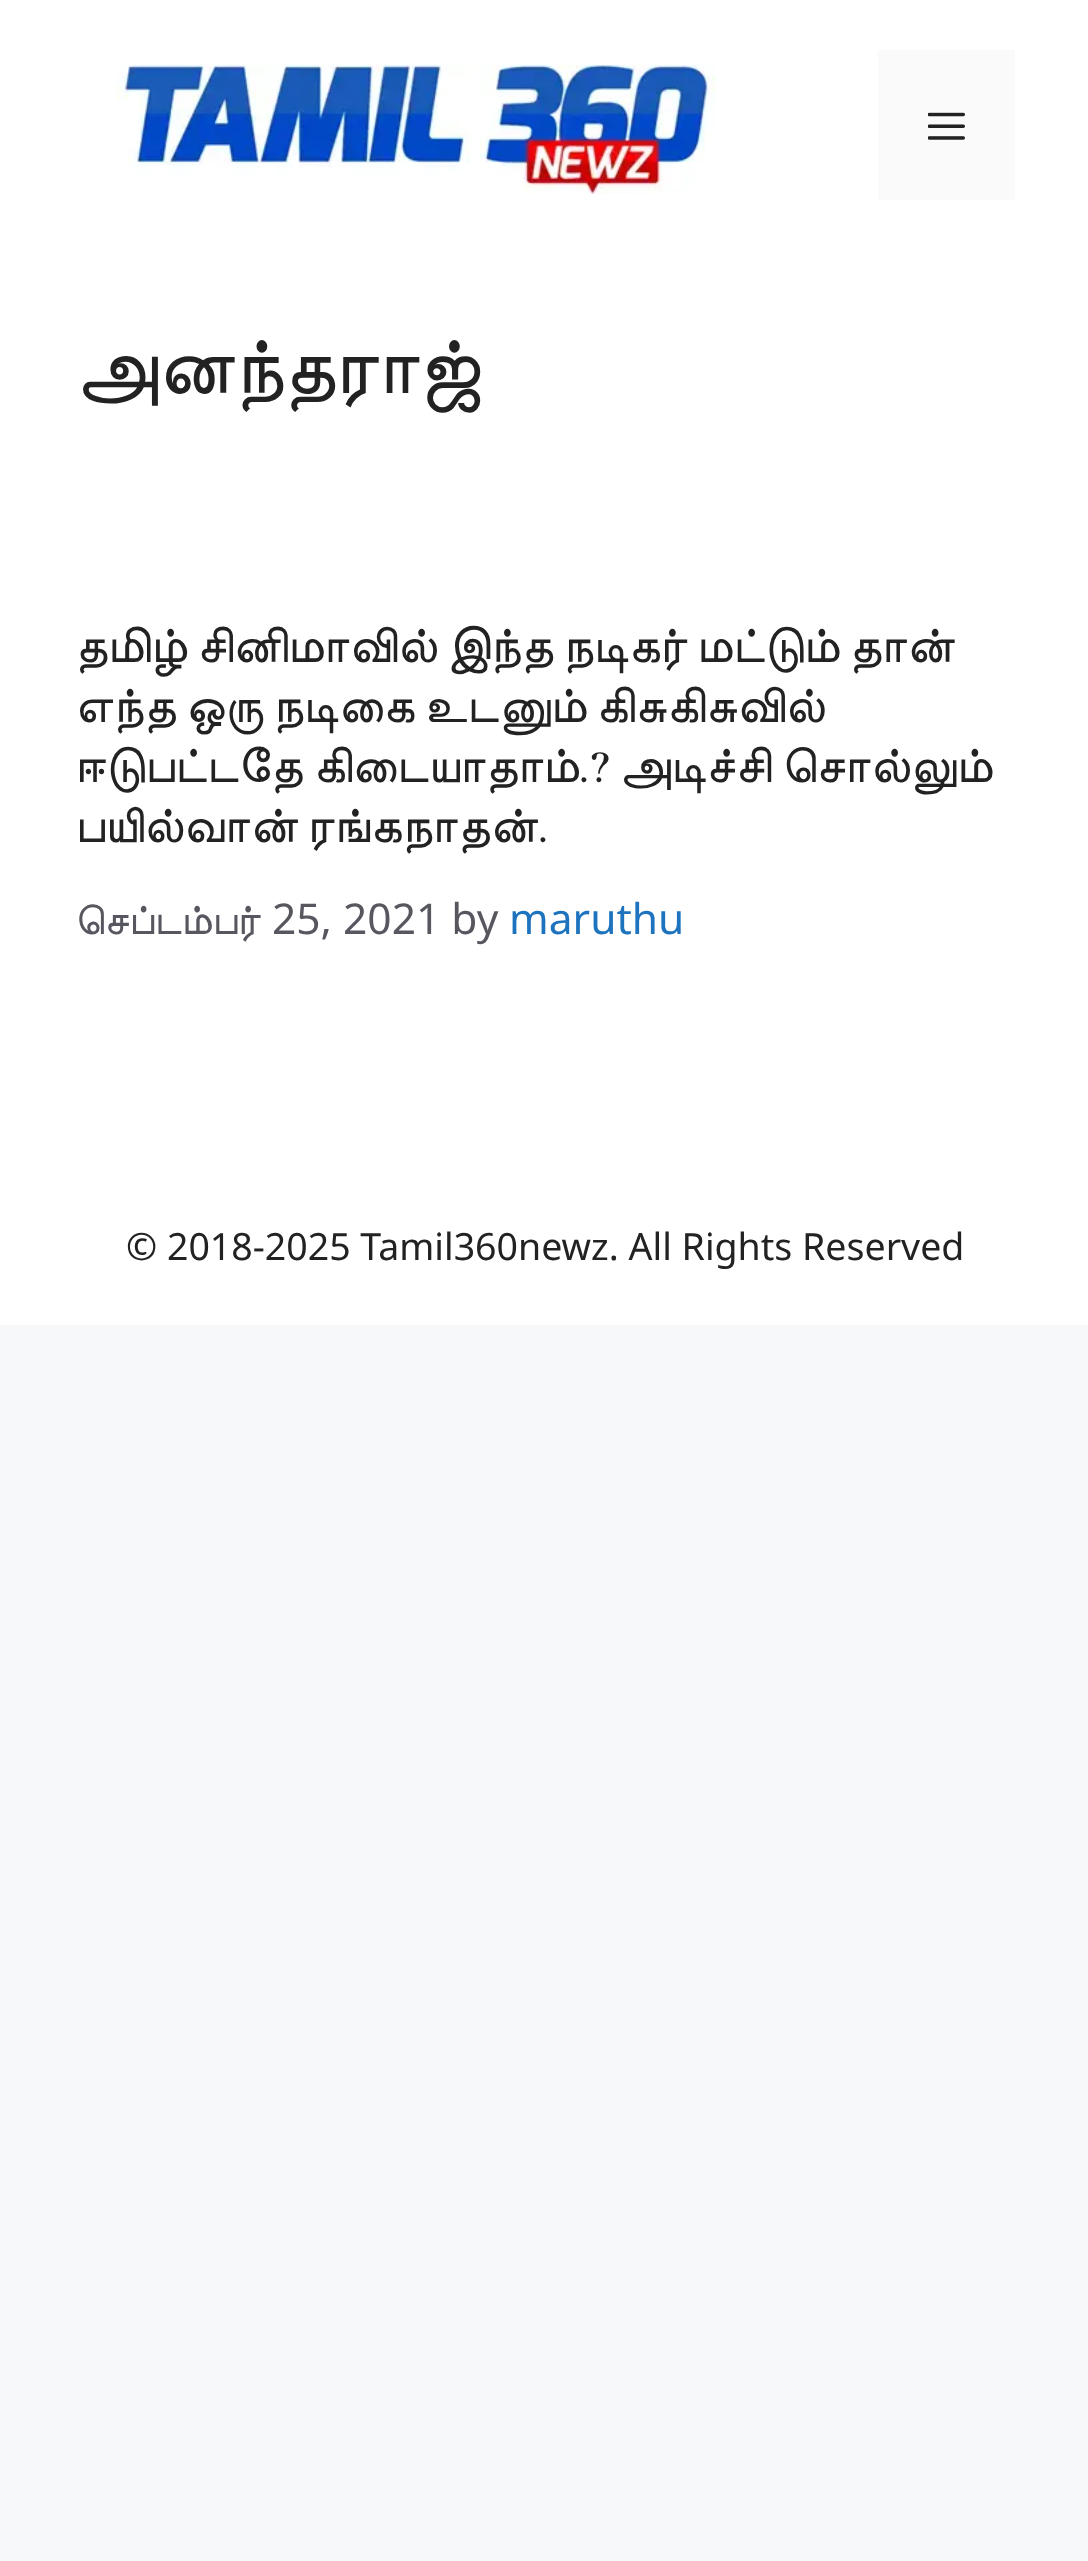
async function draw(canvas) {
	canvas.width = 1088;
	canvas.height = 2561;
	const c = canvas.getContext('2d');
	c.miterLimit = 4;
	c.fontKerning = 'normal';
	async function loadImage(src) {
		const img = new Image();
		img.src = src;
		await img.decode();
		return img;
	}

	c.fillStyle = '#f7f8f9';
	c.fillRect(0, 0, 1088, 2561);
	c.fillStyle = '#fff';
	c.fillRect(0, 0, 1088, 1325);
	c.drawImage(await loadImage('img1.png'), 116, 64, 600, 130);
	c.fillStyle = '#fafafa';
	c.fillRect(878, 50, 137, 150);
	c.drawImage(await loadImage('img2.png'), 928, 112, 37, 28);
	c.font = '80px FreeSans';
	c.fillStyle = '#222';
	c.fillText('அனந்தராஜ்', 75, 393);
	c.wordSpacing = '-3px';
	c.font = '50px FreeSans';
	c.fillText('தமிழ் சினிமாவில் இந்த நடிகர் மட்டும் தான்', 75, 662);
	c.fillText('எந்த ஒரு நடிகை உடனும் கிசுகிசுவில்', 75, 722);
	c.wordSpacing = '-2px';
	c.fillText('ஈடுபட்டதே கிடையாதாம்', 75, 782);
	c.wordSpacing = '0px';
	c.font = '50px Abhaya Libre';
	c.fillText('.?', 579, 782);
	c.wordSpacing = '-2px';
	c.font = '50px FreeSans';
	c.fillText('அடிச்சி சொல்லும்', 619, 782);
	c.wordSpacing = '-3px';
	c.fillText('பயில்வான் ரங்கநாதன்', 75, 842);
	c.wordSpacing = '0px';
	c.font = '50px Abhaya Libre';
	c.fillText('.', 538, 842);
	c.font = '42.5px FreeSans';
	c.fillStyle = '#575760';
	c.fillText('செப்டம்பர்', 75, 934);
	c.font = '42.5px Noto Sans';
	c.fillText('25, 2021 by', 272, 934);
	c.fillStyle = '#1e73be';
	c.fillText('maruthu', 509, 934);
	c.font = '37.5px Noto Sans';
	c.fillStyle = '#222';
	c.fillText('© 2018-2025 Tamil360newz. All Rights Reserved', 126, 1260);
}

draw(document.querySelector('canvas'));
